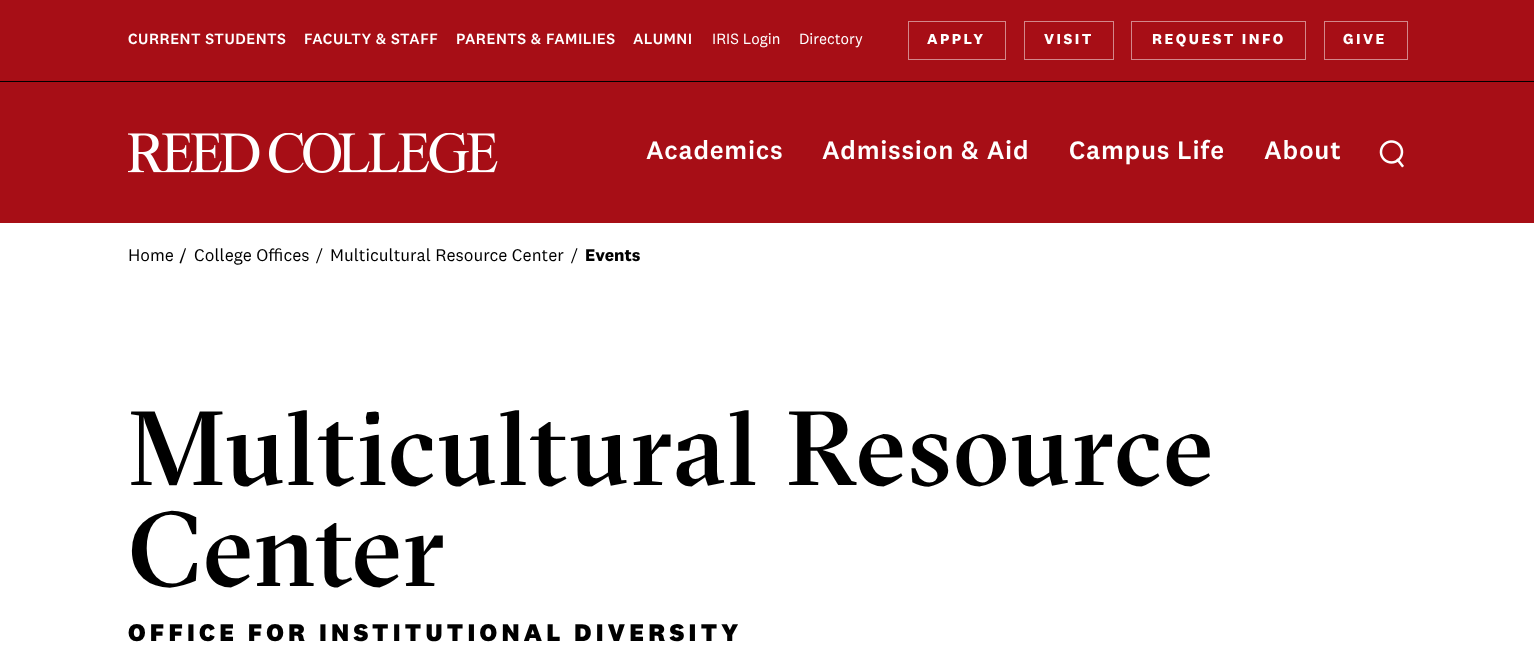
async function draw(canvas) {
	canvas.width = 1534;
	canvas.height = 667;
	const c = canvas.getContext('2d');
	c.miterLimit = 4;
	c.fontKerning = 'normal';
	async function loadImage(src) {
		const img = new Image();
		img.src = src;
		await img.decode();
		return img;
	}

	c.fillStyle = '#fff';
	c.fillRect(0, 0, 1534, 667);
	c.fillStyle = '#a70e16';
	c.fillRect(0, 0, 1534, 223);
	c.fillStyle = '#000';
	c.fillRect(0, 81, 1534, 1);
	c.letterSpacing = '0.5px';
	c.font = '500 15.4px "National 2"';
	c.fillStyle = '#fff';
	for (const [text, x, y] of [
		['CURRENT STUDENTS', 128, 44],
		['FACULTY & STAFF', 304, 44],
		['PARENTS & FAMILIES', 456, 44],
		['ALUMNI', 633, 44],
	]) {
		c.fillText(text, x, y);
	}
	c.letterSpacing = '0px';
	c.font = '15.4px "National 2"';
	c.fillText('IRIS Login', 712, 44);
	c.fillText('Directory', 799, 44);
	c.strokeStyle = '#d3878b';
	c.strokeRect(908.5, 21.5, 97, 38);
	c.letterSpacing = '2.5px';
	c.font = 'bold 15px "National 2"';
	c.fillText('APPLY', 927, 44);
	c.strokeRect(1024.5, 21.5, 89, 38);
	c.fillText('VISIT', 1044, 44);
	c.strokeRect(1131.5, 21.5, 174, 38);
	c.fillText('REQUEST INFO', 1152, 44);
	c.strokeRect(1324.5, 21.5, 83, 38);
	c.fillText('GIVE', 1343, 44);
	c.letterSpacing = '0.75px';
	c.font = '500 26.25px "National 2"';
	for (const [text, x, y] of [
		['Academics', 646, 159],
		['Admission & Aid', 822, 159],
		['Campus Life', 1069, 159],
		['About', 1264, 159],
	]) {
		c.fillText(text, x, y);
	}
	c.drawImage(await loadImage('img1.png'), 128, 133, 370, 40);
	c.drawImage(await loadImage('img2.png'), 1379, 140, 25, 28);
	c.letterSpacing = '0px';
	c.font = '17.5px "National 2"';
	c.fillStyle = '#000';
	c.fillText('Home', 128, 261);
	c.beginPath();
	c.moveTo(185, 248);
	c.lineTo(186, 248.5);
	c.lineTo(181, 263.5);
	c.lineTo(179.5, 263);
	c.closePath();
	c.fill();
	c.fillText('College Offices', 194, 261);
	c.beginPath();
	c.moveTo(321.5, 248);
	c.lineTo(322.5, 248.5);
	c.lineTo(317, 263.5);
	c.lineTo(316, 263);
	c.closePath();
	c.fill();
	c.fillText('Multicultural Resource Center', 330, 261);
	c.beginPath();
	c.moveTo(576.5, 248);
	c.lineTo(577.5, 248.5);
	c.lineTo(572, 263.5);
	c.lineTo(571, 263);
	c.closePath();
	c.fill();
	c.font = 'bold 17.5px "National 2"';
	c.fillText('Events', 585, 261);
	c.letterSpacing = '2.1px';
	c.font = '500 105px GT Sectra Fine';
	c.fillText('Multicultural Resource', 128, 485);
	c.fillText('Center', 128, 586);
	c.letterSpacing = '4.25px';
	c.font = '800 25px "National 2"';
	c.fillText('OFFICE FOR INSTITUTIONAL DIVERSITY', 128, 641);
}

draw(document.querySelector('canvas'));
